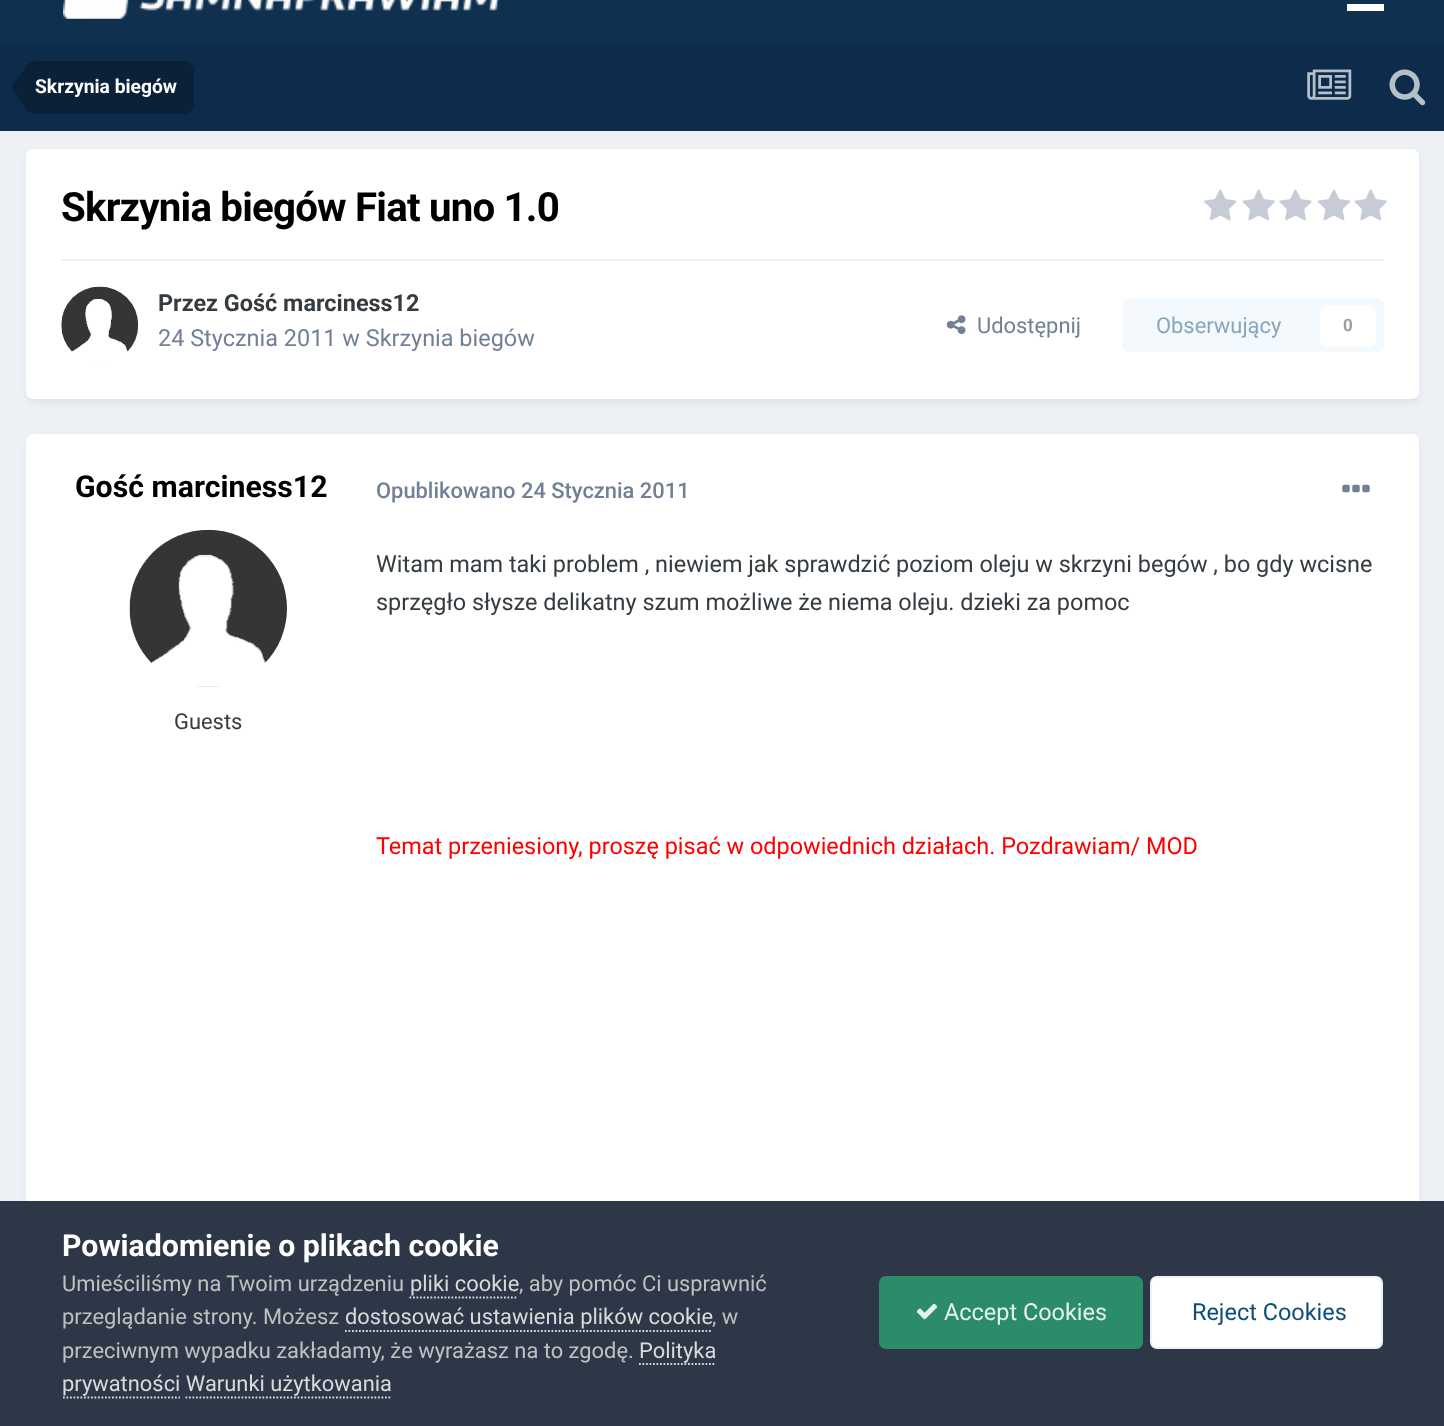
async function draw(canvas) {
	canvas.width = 1444;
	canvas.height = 1426;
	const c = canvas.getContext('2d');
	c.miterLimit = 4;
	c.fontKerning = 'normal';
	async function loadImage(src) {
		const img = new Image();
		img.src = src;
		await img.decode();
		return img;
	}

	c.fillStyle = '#edf0f4';
	c.fillRect(0, 0, 1444, 1426);
	c.fillStyle = '#103050';
	c.fillRect(0, 0, 1444, 44);
	c.drawImage(await loadImage('img1.png'), 63, 0, 436, 19);
	c.fillStyle = '#fff';
	c.fillRect(1347, 4, 37, 7);
	c.fillStyle = '#0d2c4b';
	c.fillRect(0, 44, 1444, 87);
	c.fillStyle = '#0a2138';
	c.beginPath();
	c.roundRect(35, 61, 159, 53, [0, 9, 9, 0]);
	c.fill();
	c.beginPath();
	c.moveTo(12.5, 90.5);
	c.lineTo(12, 87.5);
	c.lineTo(35, 87.5);
	c.lineTo(35, 114);
	c.bezierCurveTo(31, 114, 27.5, 111.5, 25, 107);
	c.closePath();
	c.fill();
	c.fillStyle = '#00000040';
	c.beginPath();
	c.moveTo(35, 61);
	c.lineTo(35, 87.5);
	c.lineTo(12, 87.5);
	c.lineTo(12.5, 84.5);
	c.lineTo(25, 68);
	c.bezierCurveTo(27.5, 63.5, 31, 61, 35, 61);
	c.closePath();
	c.fill();
	c.font = 'bold 19.25px Roboto';
	c.fillStyle = '#fff';
	c.fillText('Skrzynia biegów', 35, 93);
	c.drawImage(await loadImage('img2.png'), 1307, 69, 45, 31);
	c.drawImage(await loadImage('img3.png'), 1389, 69, 37, 37);
	c.fillStyle = '#2d37481a';
	c.filter = 'blur(3.5px)';
	c.beginPath();
	c.roundRect(28, 154, 1390, 247, 5);
	c.fill();
	c.filter = 'none';
	c.fillStyle = '#fff';
	c.beginPath();
	c.roundRect(26, 149, 1393, 250, 7);
	c.fill();
	c.letterSpacing = '-0.8px';
	c.font = 'bold 40.25px Roboto';
	c.fillStyle = '#000';
	c.fillText('Skrzynia biegów Fiat uno 1.0', 61, 221);
	c.drawImage(await loadImage('img4.png'), 1204, 189, 33, 32);
	c.drawImage(await loadImage('img5.png'), 1242, 189, 33, 32);
	c.drawImage(await loadImage('img6.png'), 1279, 189, 33, 32);
	c.drawImage(await loadImage('img7.png'), 1317, 189, 34, 32);
	c.drawImage(await loadImage('img5.png'), 1354, 189, 33, 32);
	c.fillStyle = '#efeff0';
	c.fillRect(61, 259, 1323, 2);
	c.drawImage(await loadImage('img8.png'), 61, 286, 78, 78);
	c.letterSpacing = '0px';
	c.font = 'bold 23.45px Roboto';
	c.fillStyle = '#353c41';
	c.fillText('Przez Gość marciness12', 158, 311);
	c.font = '23.45px Roboto';
	c.fillStyle = '#718096';
	c.fillText('24 Stycznia 2011 w Skrzynia biegów', 158, 346);
	c.drawImage(await loadImage('img9.png'), 946, 315, 20, 20);
	c.font = '21.9px Roboto';
	c.fillText('Udostępnij', 977, 333);
	c.fillStyle = '#f4f9fd';
	c.beginPath();
	c.roundRect(1122, 298, 262, 54, 7);
	c.fill();
	c.fillStyle = '#87a6bc';
	c.fillText('Obserwujący', 1156, 333);
	c.fillStyle = '#fff';
	c.beginPath();
	c.roundRect(1320, 305, 56, 42, 7);
	c.fill();
	c.font = 'bold 17px Roboto';
	c.fillStyle = '#9a9ea0';
	c.fillText('0', 1343, 331);
	c.fillStyle = '#2d37481a';
	c.filter = 'blur(3.5px)';
	c.beginPath();
	c.roundRect(28, 439, 1390, 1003, 5);
	c.fill();
	c.filter = 'none';
	c.fillStyle = '#fff';
	c.beginPath();
	c.roundRect(26, 434, 1393, 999, 7);
	c.fill();
	c.font = 'bold 30.25px Roboto';
	c.fillStyle = '#000';
	c.fillText('Gość marciness12', 75, 497);
	c.drawImage(await loadImage('img10.png'), 129, 529, 158, 158);
	c.font = '21.9px Roboto';
	c.fillStyle = '#353c41';
	c.fillText('Guests', 174, 729);
	c.font = '500 21.9px Roboto';
	c.fillStyle = '#718096';
	c.fillText('Opublikowano 24 Stycznia 2011', 376, 498);
	c.drawImage(await loadImage('img11.png'), 1342, 484, 28, 9);
	c.font = '23.45px Roboto';
	c.fillStyle = '#353c41';
	c.fillText('Witam mam taki problem , niewiem jak sprawdzić poziom oleju w skrzyni begów , bo gdy wcisne', 376, 572);
	c.fillText('sprzęgło słysze delikatny szum możliwe że niema oleju. dzieki za pomoc', 376, 610);
	c.fillStyle = '#f00';
	c.fillText('Temat przeniesiony, proszę pisać w odpowiednich działach. Pozdrawiam/ MOD', 376, 854);
	c.fillStyle = '#2d3748';
	c.fillRect(0, 1201, 1444, 225);
	c.font = 'bold 30.25px Roboto';
	c.fillStyle = '#fff';
	c.fillText('Powiadomienie o plikach cookie', 62, 1256);
	c.font = '21.9px Roboto';
	c.fillStyle = '#c0c0c0';
	c.fillText('Umieściliśmy na Twoim urządzeniu', 62, 1291);
	c.fillStyle = '#dadada';
	c.fillText('pliki cookie', 410, 1291);
	c.beginPath();
	c.moveTo(409.5, 1297.5);
	c.lineTo(518, 1297.5);
	c.strokeStyle = '#dadada';
	c.lineWidth = 1.8;
	c.setLineDash([1.75, 1.75]);
	c.stroke();
	c.fillStyle = '#c0c0c0';
	c.fillText(', aby pomóc Ci usprawnić', 519, 1291);
	c.fillText('przeglądanie strony. Możesz', 62, 1324);
	c.fillStyle = '#dadada';
	c.fillText('dostosować ustawienia plików cookie', 345, 1324);
	c.beginPath();
	c.moveTo(345, 1331);
	c.lineTo(712, 1331);
	c.stroke();
	c.fillStyle = '#c0c0c0';
	c.fillText(', w', 712, 1324);
	c.fillText('przeciwnym wypadku zakładamy, że wyrażasz na to zgodę.', 62, 1358);
	c.fillStyle = '#dadada';
	c.fillText('Polityka', 639, 1358);
	c.beginPath();
	c.moveTo(639, 1364);
	c.lineTo(716, 1364);
	c.stroke();
	c.fillText('prywatności Warunki użytkowania', 62, 1391);
	c.beginPath();
	c.moveTo(63, 1397.5);
	c.lineTo(180, 1397.5);
	c.stroke();
	c.beginPath();
	c.moveTo(185.5, 1397.5);
	c.lineTo(392, 1397.5);
	c.stroke();
	c.fillStyle = '#2c8c69';
	c.beginPath();
	c.roundRect(879, 1276, 264, 73, 7);
	c.fill();
	c.drawImage(await loadImage('img12.png'), 916, 1303, 22, 17);
	c.font = '23.45px Roboto';
	c.fillStyle = '#e3f3ec';
	c.fillText('Accept Cookies', 944, 1320);
	c.fillStyle = '#fff';
	c.beginPath();
	c.roundRect(1150, 1276, 233, 73, 7);
	c.fill();
	c.beginPath();
	c.roundRect(1151, 1277, 231, 71, 6);
	c.strokeStyle = '#0e4c7912';
	c.lineWidth = 2;
	c.setLineDash([]);
	c.stroke();
	c.fillStyle = '#0e4c79';
	c.fillText('Reject Cookies', 1192, 1320);
}

draw(document.querySelector('canvas'));
